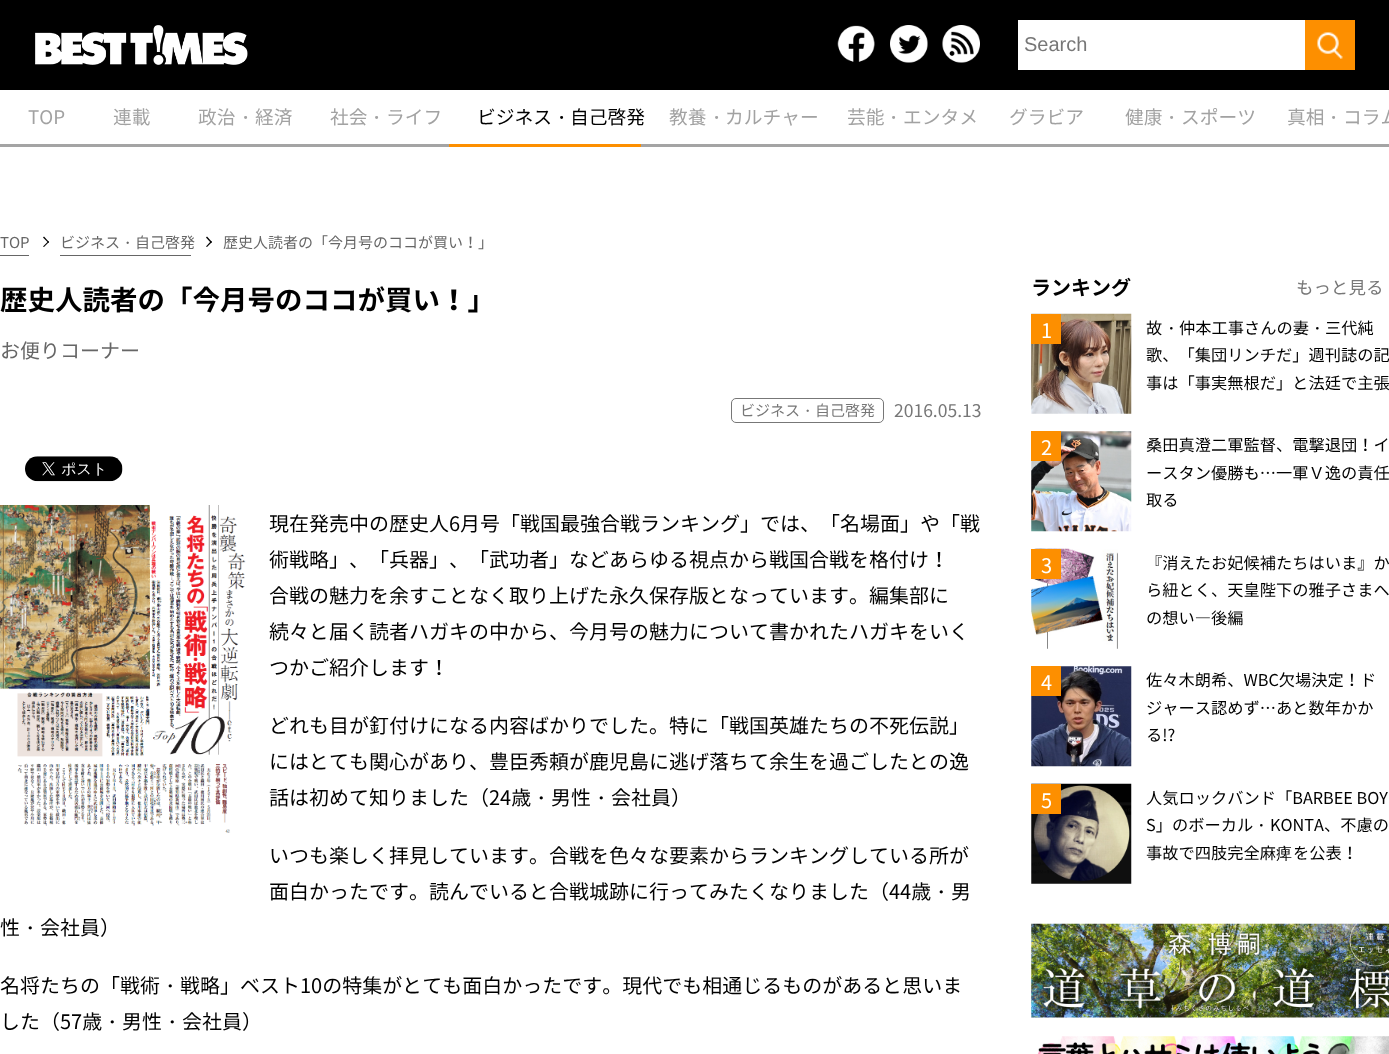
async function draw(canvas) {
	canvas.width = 1389;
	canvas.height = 1054;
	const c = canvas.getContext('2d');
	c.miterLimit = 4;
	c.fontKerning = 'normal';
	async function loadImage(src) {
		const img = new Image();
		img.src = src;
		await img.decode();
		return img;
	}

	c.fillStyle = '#fff';
	c.fillRect(0, 0, 1389, 1054);
	c.fillStyle = '#000';
	c.fillRect(0, 0, 1389, 90);
	c.drawImage(await loadImage('img1.png'), 35, 25, 213, 40);
	c.drawImage(await loadImage('img2.png'), 837, 25, 38, 37);
	c.drawImage(await loadImage('img3.png'), 890, 25, 38, 38);
	c.drawImage(await loadImage('img4.png'), 942, 25, 38, 38);
	c.fillStyle = '#fff';
	c.fillRect(1018, 20, 287, 50);
	c.font = '20px Liberation Sans';
	c.fillStyle = '#777';
	c.fillText('Search', 1024, 51);
	c.fillStyle = '#fd8f00';
	c.fillRect(1305, 20, 50, 50);
	c.drawImage(await loadImage('img5.png'), 1317, 32, 26, 27);
	c.fillStyle = '#a4a4a4';
	c.fillRect(0, 144, 449, 3);
	c.font = '18.75px Noto Sans JP';
	c.fillStyle = '#a2a2a2';
	for (const [text, x, y] of [
		['TOP', 28, 124],
		['連載', 113, 124],
		['政治', 198, 124],
	]) {
		c.fillText(text, x, y);
	}
	c.font = '500 18.75px WenQuanYi Zen Hei';
	c.fillText('・', 236, 124);
	c.font = '18.75px Noto Sans JP';
	c.fillText('経済', 255, 124);
	c.fillText('社会', 330, 124);
	c.font = '500 18.75px WenQuanYi Zen Hei';
	c.fillText('・', 367, 124);
	c.font = '18.75px Noto Sans JP';
	c.fillText('ライフ', 386, 124);
	c.fillStyle = '#fd8f00';
	c.fillRect(449, 144, 192, 3);
	c.fillStyle = '#000';
	c.fillText('ビジネス', 477, 124);
	c.font = '500 18.75px WenQuanYi Zen Hei';
	c.fillText('・', 552, 124);
	c.font = '18.75px Noto Sans JP';
	c.fillText('自己啓発', 570, 124);
	c.fillStyle = '#a4a4a4';
	c.fillRect(641, 144, 748, 3);
	c.fillStyle = '#a2a2a2';
	c.fillText('教養', 669, 124);
	c.font = '500 18.75px WenQuanYi Zen Hei';
	c.fillText('・', 707, 124);
	c.font = '18.75px Noto Sans JP';
	c.fillText('カルチャー', 725, 124);
	c.fillText('芸能', 847, 124);
	c.font = '500 18.75px WenQuanYi Zen Hei';
	c.fillText('・', 884, 124);
	c.font = '18.75px Noto Sans JP';
	for (const [text, x, y] of [
		['エンタメ', 903, 124],
		['グラビア', 1009, 124],
		['健康', 1125, 124],
	]) {
		c.fillText(text, x, y);
	}
	c.font = '500 18.75px WenQuanYi Zen Hei';
	c.fillText('・', 1162, 124);
	c.font = '18.75px Noto Sans JP';
	c.fillText('スポーツ', 1181, 124);
	c.fillText('真相', 1287, 124);
	c.font = '500 18.75px WenQuanYi Zen Hei';
	c.fillText('・', 1324, 124);
	c.font = '18.75px Noto Sans JP';
	c.fillText('コラム', 1343, 124);
	c.fillStyle = '#666';
	c.fillRect(0, 255, 29, 1);
	c.font = '15px Noto Sans JP';
	c.fillText('TOP', 0, 248);
	c.fillStyle = '#000';
	c.beginPath();
	c.moveTo(44, 236.5);
	c.lineTo(49, 242);
	c.lineTo(48.5, 243);
	c.lineTo(43, 237.5);
	c.closePath();
	c.fill();
	c.beginPath();
	c.moveTo(48.5, 241);
	c.lineTo(49, 242);
	c.lineTo(44, 247);
	c.lineTo(43, 246.5);
	c.closePath();
	c.fill();
	c.fillStyle = '#666';
	c.fillRect(60, 255, 131, 1);
	c.fillText('ビジネス', 60, 248);
	c.font = '500 15px WenQuanYi Zen Hei';
	c.fillText('・', 120, 248);
	c.font = '15px Noto Sans JP';
	c.fillText('自己啓発', 135, 248);
	c.fillStyle = '#000';
	c.beginPath();
	c.moveTo(207, 236.5);
	c.lineTo(212, 242);
	c.lineTo(211, 243);
	c.lineTo(206, 237.5);
	c.closePath();
	c.fill();
	c.beginPath();
	c.moveTo(211, 241);
	c.lineTo(212, 242);
	c.lineTo(207, 247);
	c.lineTo(206, 246.5);
	c.closePath();
	c.fill();
	c.fillStyle = '#666';
	c.fillText('歴史人読者の「今月号のココが買い！」', 223, 248);
	c.font = 'bold 27.5px Noto Sans JP';
	c.fillStyle = '#000';
	c.fillText('歴史人読者の「今月号のココが買い！」', 0, 310);
	c.font = '20px Noto Sans JP';
	c.fillStyle = '#666';
	c.fillText('お便りコーナー', 0, 358);
	c.beginPath();
	c.roundRect(731.5, 398.5, 152, 24, 4.5);
	c.strokeStyle = '#777';
	c.stroke();
	c.font = '15px Noto Sans JP';
	c.fillStyle = '#777';
	c.fillText('ビジネス', 740, 416);
	c.font = '500 15px WenQuanYi Zen Hei';
	c.fillText('・', 800, 416);
	c.font = '15px Noto Sans JP';
	c.fillText('自己啓発', 815, 416);
	c.font = '17.5px Noto Sans JP';
	c.fillText('2016.05.13', 894, 417);
	c.drawImage(await loadImage('img6.png'), 25, 456, 98, 26);
	c.drawImage(await loadImage('img7.png'), 0, 505, 246, 328);
	c.font = '20px Noto Sans JP';
	c.fillStyle = '#000';
	for (const [text, x, y] of [
		['現在発売中の歴史人6月号「戦国最強合戦ランキング」では、「名場面」や「戦', 269, 531],
		['術戦略」、「兵器」、「武功者」などあらゆる視点から戦国合戦を格付け！', 269, 567],
		['合戦の魅力を余すことなく取り上げた永久保存版となっています。編集部に', 269, 603],
		['続々と届く読者ハガキの中から、今月号の魅力について書かれたハガキをいく', 269, 639],
		['つかご紹介します！', 269, 675],
		['どれも目が釘付けになる内容ばかりでした。特に「戦国英雄たちの不死伝説」', 269, 733],
		['にはとても関心があり、豊臣秀頼が鹿児島に逃げ落ちて余生を過ごしたとの逸', 269, 769],
		['話は初めて知りました（24歳', 269, 805],
	]) {
		c.fillText(text, x, y);
	}
	c.font = '500 20px WenQuanYi Zen Hei';
	c.fillText('・', 531, 805);
	c.font = '20px Noto Sans JP';
	c.fillText('男性', 551, 805);
	c.font = '500 20px WenQuanYi Zen Hei';
	c.fillText('・', 591, 805);
	c.font = '20px Noto Sans JP';
	for (const [text, x, y] of [
		['会社員）', 611, 805],
		['いつも楽しく拝見しています。合戦を色々な要素からランキングしている所が', 269, 863],
		['面白かったです。読んでいると合戦城跡に行ってみたくなりました（44歳', 269, 899],
	]) {
		c.fillText(text, x, y);
	}
	c.font = '500 20px WenQuanYi Zen Hei';
	c.fillText('・', 931, 899);
	c.font = '20px Noto Sans JP';
	c.fillText('男', 951, 899);
	c.fillText('性', 0, 935);
	c.font = '500 20px WenQuanYi Zen Hei';
	c.fillText('・', 20, 935);
	c.font = '20px Noto Sans JP';
	c.fillText('会社員）', 40, 935);
	c.fillText('名将たちの「戦術', 0, 993);
	c.font = '500 20px WenQuanYi Zen Hei';
	c.fillText('・', 160, 993);
	c.font = '20px Noto Sans JP';
	c.fillText('戦略」ベスト10の特集がとても面白かったです。現代でも相通じるものがあると思いま', 180, 993);
	c.fillText('した（57歳', 0, 1029);
	c.font = '500 20px WenQuanYi Zen Hei';
	c.fillText('・', 102, 1029);
	c.font = '20px Noto Sans JP';
	c.fillText('男性', 122, 1029);
	c.font = '500 20px WenQuanYi Zen Hei';
	c.fillText('・', 162, 1029);
	c.font = '20px Noto Sans JP';
	c.fillText('会社員）', 182, 1029);
	c.font = 'bold 20px Noto Sans JP';
	c.fillText('ランキング', 1031, 295);
	c.font = '17.5px Noto Sans JP';
	c.fillStyle = '#777';
	c.fillText('もっと見る', 1296, 294);
	c.drawImage(await loadImage('img8.png'), 1031, 313, 101, 101);
	c.fillStyle = '#fd8f00';
	c.fillRect(1031, 314, 30, 30);
	c.font = '20px Noto Sans JP';
	c.fillStyle = '#fff';
	c.fillText('1', 1041, 338);
	c.font = '16.25px Noto Sans JP';
	c.fillStyle = '#000';
	c.fillText('故', 1146, 334);
	c.font = '500 16.25px WenQuanYi Zen Hei';
	c.fillText('・', 1163, 334);
	c.font = '16.25px Noto Sans JP';
	c.fillText('仲本工事さんの妻', 1179, 334);
	c.font = '500 16.25px WenQuanYi Zen Hei';
	c.fillText('・', 1309, 334);
	c.font = '16.25px Noto Sans JP';
	for (const [text, x, y] of [
		['三代純', 1325, 334],
		['歌、「集団リンチだ」週刊誌の記', 1146, 361],
		['事は「事実無根だ」と法廷で主張', 1146, 389],
	]) {
		c.fillText(text, x, y);
	}
	c.drawImage(await loadImage('img9.png'), 1031, 431, 101, 101);
	c.fillStyle = '#fd8f00';
	c.fillRect(1031, 431, 30, 30);
	c.font = '20px Noto Sans JP';
	c.fillStyle = '#fff';
	c.fillText('2', 1041, 455);
	c.font = '16.25px Noto Sans JP';
	c.fillStyle = '#000';
	for (const [text, x, y] of [
		['桑田真澄二軍監督、電撃退団！イ', 1146, 451],
		['ースタン優勝も…一軍Ｖ逸の責任', 1146, 479],
		['取る', 1146, 506],
	]) {
		c.fillText(text, x, y);
	}
	c.drawImage(await loadImage('img10.png'), 1031, 548, 87, 101);
	c.fillStyle = '#fd8f00';
	c.fillRect(1031, 549, 30, 30);
	c.font = '20px Noto Sans JP';
	c.fillStyle = '#fff';
	c.fillText('3', 1041, 573);
	c.font = '16.25px Noto Sans JP';
	c.fillStyle = '#000';
	for (const [text, x, y] of [
		['『消えたお妃候補たちはいま』か', 1146, 569],
		['ら紐とく、天皇陛下の雅子さまへ', 1146, 596],
		['の想い―後編', 1146, 624],
	]) {
		c.fillText(text, x, y);
	}
	c.drawImage(await loadImage('img11.png'), 1031, 666, 101, 101);
	c.fillStyle = '#fd8f00';
	c.fillRect(1031, 666, 30, 30);
	c.font = '20px Noto Sans JP';
	c.fillStyle = '#fff';
	c.fillText('4', 1041, 690);
	c.font = '16.25px Noto Sans JP';
	c.fillStyle = '#000';
	for (const [text, x, y] of [
		['佐々木朗希、WBC欠場決定！ド', 1146, 686],
		['ジャース認めず…あと数年かか', 1146, 714],
		['る!?', 1146, 741],
	]) {
		c.fillText(text, x, y);
	}
	c.drawImage(await loadImage('img12.png'), 1031, 783, 101, 101);
	c.fillStyle = '#fd8f00';
	c.fillRect(1031, 784, 30, 30);
	c.font = '20px Noto Sans JP';
	c.fillStyle = '#fff';
	c.fillText('5', 1041, 808);
	c.font = '16.25px Noto Sans JP';
	c.fillStyle = '#000';
	c.fillText('人気ロックバンド「BARBEE BOY', 1146, 804);
	c.fillText('S」のボーカル', 1146, 831);
	c.font = '500 16.25px WenQuanYi Zen Hei';
	c.fillText('・', 1253, 831);
	c.font = '16.25px Noto Sans JP';
	c.fillText('KONTA、不慮の', 1270, 831);
	c.fillText('事故で四肢完全麻', 1146, 859);
	c.font = '500 16.25px WenQuanYi Zen Hei';
	c.fillText('痺', 1276, 859);
	c.font = '16.25px Noto Sans JP';
	c.fillText('を公表！', 1293, 859);
	c.drawImage(await loadImage('img13.png'), 1031, 923, 358, 95);
	c.drawImage(await loadImage('img14.png'), 1037, 1036, 352, 18);
}

draw(document.querySelector('canvas'));
